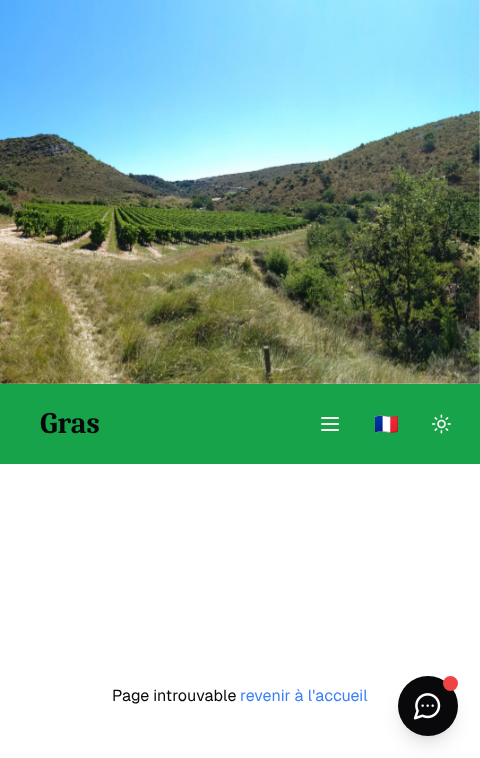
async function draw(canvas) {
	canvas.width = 480;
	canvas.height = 758;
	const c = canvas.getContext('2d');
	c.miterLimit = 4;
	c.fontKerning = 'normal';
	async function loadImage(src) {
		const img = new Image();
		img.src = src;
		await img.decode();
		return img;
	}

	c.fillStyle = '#fff';
	c.fillRect(0, 0, 480, 758);
	c.drawImage(await loadImage('img1.png'), 0, 0, 480, 384);
	c.fillStyle = '#16a34a';
	c.fillRect(0, 384, 480, 80);
	c.font = 'bold 30px Caladea';
	c.fillStyle = '#09090b';
	c.fillText('Gras', 40, 433);
	c.drawImage(await loadImage('img2.png'), 321, 417, 18, 14);
	c.font = '20px Noto Color Emoji';
	c.fillText('🇫🇷', 374, 431);
	c.drawImage(await loadImage('img3.png'), 431, 414, 20, 20);
	c.font = '16px Geist';
	c.fillText('Page introuvable', 112, 701);
	c.fillStyle = '#3b82f6';
	c.fillText('revenir à l\'accueil', 240, 701);
	c.fillStyle = '#0000001a';
	c.filter = 'blur(4px)';
	c.beginPath();
	c.roundRect(403, 686, 50, 50, 25);
	c.fill();
	c.filter = 'none';
	c.filter = 'blur(9.5px)';
	c.beginPath();
	c.roundRect(401, 692, 53, 53, 26.5);
	c.fill();
	c.filter = 'none';
	c.fillStyle = '#09090b';
	c.beginPath();
	c.arc(428, 706, 30, 0, 2 * Math.PI);
	c.fill();
	c.fillStyle = '#ef4444';
	c.beginPath();
	c.arc(450.5, 683.5, 7.5, 0, 2 * Math.PI);
	c.fill();
	c.drawImage(await loadImage('img4.png'), 413, 693, 28, 27);
}

draw(document.querySelector('canvas'));
